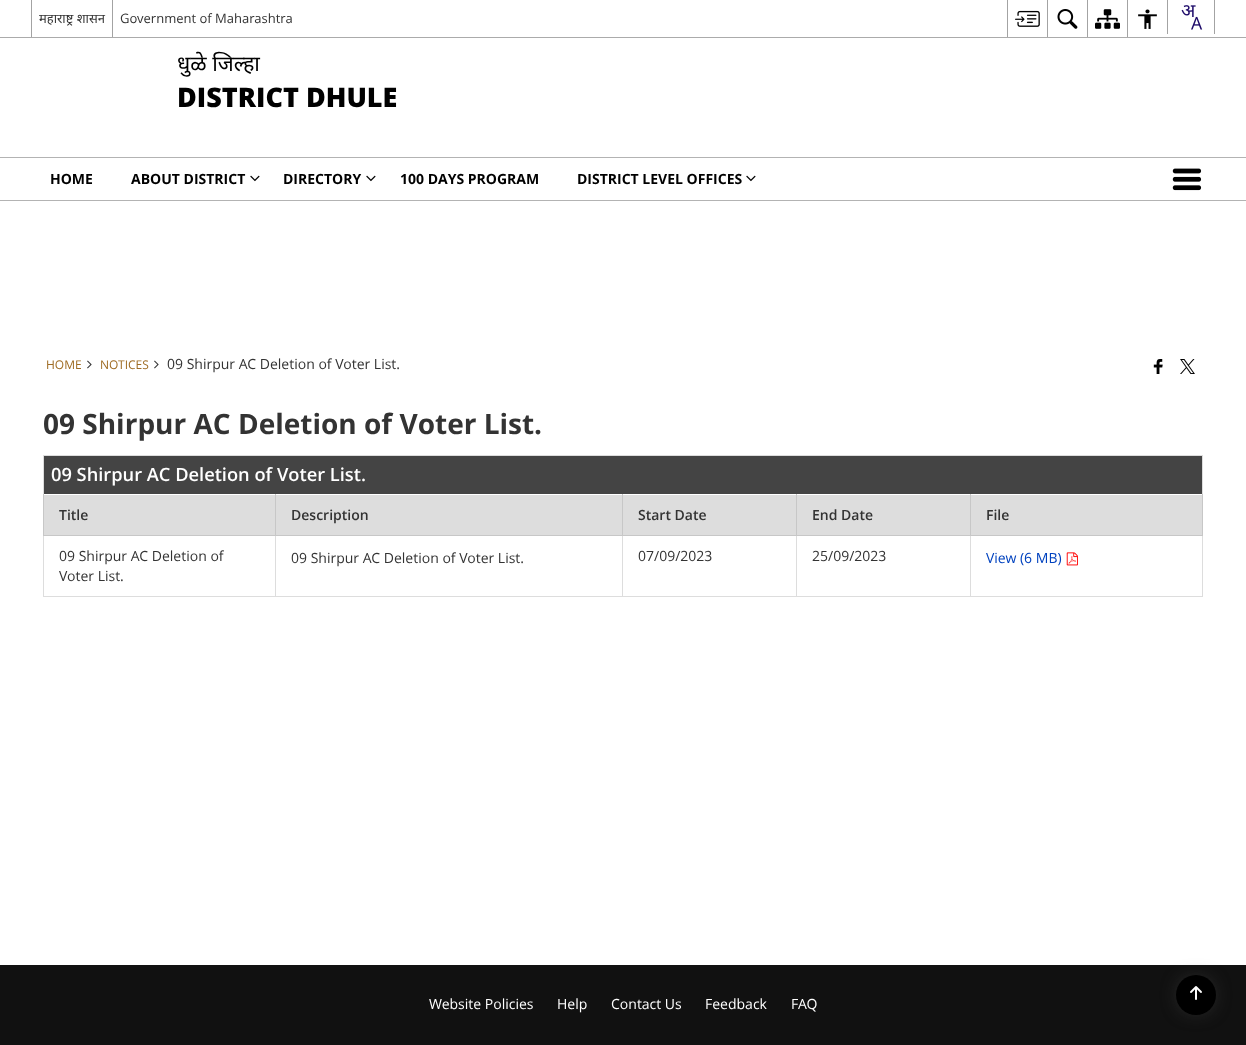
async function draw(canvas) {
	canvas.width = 1246;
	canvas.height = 1045;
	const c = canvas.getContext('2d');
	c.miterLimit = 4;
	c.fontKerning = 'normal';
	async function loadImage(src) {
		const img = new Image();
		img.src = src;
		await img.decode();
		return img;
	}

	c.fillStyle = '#fff';
	c.fillRect(0, 0, 1246, 1045);
	c.fillStyle = '#ababab';
	c.fillRect(0, 37, 1246, 1);
	c.fillStyle = '#a3a3a3';
	c.fillRect(31, 0, 1, 37);
	c.font = '13px Noto Sans';
	c.fillStyle = '#333';
	c.fillText('महाराष्ट्र शासन', 39, 23);
	c.fillStyle = '#a3a3a3';
	c.fillRect(112, 0, 1, 37);
	c.font = '13px Open Sans';
	c.fillStyle = '#333';
	c.fillText('Government of Maharashtra', 120, 23);
	c.fillStyle = '#a3a3a3';
	c.fillRect(1007, 0, 1, 37);
	c.drawImage(await loadImage('img1.png'), 1015, 10, 25, 17);
	c.fillRect(1047, 0, 1, 37);
	c.drawImage(await loadImage('img2.png'), 1057, 9, 21, 20);
	c.fillRect(1087, 0, 1, 37);
	c.drawImage(await loadImage('img3.png'), 1095, 9, 25, 20);
	c.fillRect(1127, 0, 1, 37);
	c.drawImage(await loadImage('img4.png'), 1138, 9, 19, 20);
	c.fillRect(1214, 0, 1, 34);
	c.fillRect(1167, 0, 1, 34);
	c.drawImage(await loadImage('img5.png'), 1181, 5, 22, 25);
	c.font = '21.5px Noto Sans';
	c.fillStyle = '#000';
	c.fillText('धुळे जिल्हा', 177, 71);
	c.font = '800 27px Open Sans';
	c.fillText('DISTRICT DHULE', 177, 107);
	c.fillStyle = '#b3b3b3';
	c.fillRect(0, 157, 1246, 1);
	c.fillRect(0, 200, 1246, 1);
	c.font = 'bold 14px Open Sans';
	c.fillStyle = '#000';
	c.fillText('HOME', 50, 184);
	c.fillText('ABOUT DISTRICT', 131, 184);
	c.drawImage(await loadImage('img6.png'), 250, 175, 10, 7);
	c.fillText('DIRECTORY', 283, 184);
	c.drawImage(await loadImage('img6.png'), 366, 175, 10, 7);
	c.fillText('100 DAYS PROGRAM', 400, 184);
	c.fillText('DISTRICT LEVEL OFFICES', 577, 184);
	c.drawImage(await loadImage('img6.png'), 746, 175, 10, 7);
	c.drawImage(await loadImage('img7.png'), 1172, 168, 30, 23);
	c.font = '12px Open Sans';
	c.fillStyle = '#9e6b22';
	c.fillText('HOME', 46, 369);
	c.drawImage(await loadImage('img8.png'), 87, 360, 5, 9);
	c.fillText('NOTICES', 100, 369);
	c.drawImage(await loadImage('img8.png'), 154, 360, 5, 9);
	c.font = '14px Open Sans';
	c.fillStyle = '#333';
	c.fillText('09 Shirpur AC Deletion of Voter List.', 167, 369);
	c.drawImage(await loadImage('img9.png'), 1153, 359, 10, 15);
	c.drawImage(await loadImage('img10.png'), 1180, 359, 15, 15);
	c.font = 'bold 28px Open Sans';
	c.fillText('09 Shirpur AC Deletion of Voter List.', 43, 434);
	for (const [x, y, w, h, color] of [
		[43, 455, 1160, 1, '#ddd'],
		[1202, 455, 1, 142, '#ddd'],
		[43, 596, 1160, 1, '#ddd'],
		[43, 455, 1, 142, '#ddd'],
		[44, 456, 1158, 38, '#444'],
	]) {
		c.fillStyle = color;
		c.fillRect(x, y, w, h);
	}
	c.font = '600 18.25px Open Sans';
	c.fillStyle = '#fff';
	c.fillText('09 Shirpur AC Deletion of Voter List.', 51, 481);
	for (const [x, y, w, h, color] of [
		[44, 495, 231, 40, '#ddd'],
		[1202, 494, 1, 42, '#c7c7c7'],
		[970, 535, 1, 62, '#ddd'],
		[970, 535, 233, 1, '#c7c7c7'],
		[970, 494, 1, 42, '#c7c7c7'],
		[796, 535, 1, 62, '#ddd'],
		[796, 535, 175, 1, '#c7c7c7'],
		[796, 494, 1, 42, '#c7c7c7'],
		[622, 535, 1, 62, '#ddd'],
		[622, 535, 175, 1, '#c7c7c7'],
		[622, 494, 1, 42, '#c7c7c7'],
		[275, 535, 1, 62, '#ddd'],
		[275, 535, 348, 1, '#c7c7c7'],
		[275, 494, 1, 42, '#c7c7c7'],
		[43, 535, 233, 1, '#c7c7c7'],
		[43, 494, 1, 42, '#c7c7c7'],
	]) {
		c.fillStyle = color;
		c.fillRect(x, y, w, h);
	}
	c.font = '600 14px Open Sans';
	c.fillStyle = '#333';
	c.fillText('Title', 59, 520);
	c.fillStyle = '#ddd';
	c.fillRect(276, 495, 346, 40);
	c.fillStyle = '#333';
	c.fillText('Description', 291, 520);
	c.fillStyle = '#ddd';
	c.fillRect(623, 495, 173, 40);
	c.fillStyle = '#333';
	c.fillText('Start Date', 638, 520);
	c.fillStyle = '#ddd';
	c.fillRect(797, 495, 173, 40);
	c.fillStyle = '#333';
	c.fillText('End Date', 812, 520);
	c.fillStyle = '#ddd';
	c.fillRect(971, 495, 231, 40);
	c.fillStyle = '#333';
	c.fillText('File', 986, 520);
	c.font = '14px Open Sans';
	for (const [text, x, y] of [
		['09 Shirpur AC Deletion of', 59, 561],
		['Voter List.', 59, 581],
		['09 Shirpur AC Deletion of Voter List.', 291, 563],
		['07/09/2023', 638, 561],
		['25/09/2023', 812, 561],
	]) {
		c.fillText(text, x, y);
	}
	c.fillStyle = '#0042bf';
	c.fillText('View (6 MB)', 986, 563);
	c.drawImage(await loadImage('img11.png'), 1066, 552, 12, 14);
	c.fillStyle = '#111';
	c.fillRect(0, 965, 1246, 80);
	c.fillStyle = '#fff';
	for (const [text, x, y] of [
		['Website Policies', 429, 1009],
		['Help', 557, 1009],
		['Contact Us', 611, 1009],
		['Feedback', 705, 1009],
		['FAQ', 791, 1009],
	]) {
		c.fillText(text, x, y);
	}
	c.fillStyle = '#3c3c3c';
	c.filter = 'blur(9.5px)';
	c.beginPath();
	c.roundRect(1181, 980, 30, 30, 15);
	c.fill();
	c.filter = 'none';
	c.fillStyle = '#000';
	c.beginPath();
	c.arc(1196, 995, 20, 0, 2 * Math.PI);
	c.fill();
	c.drawImage(await loadImage('img12.png'), 1190, 986, 12, 14);
}

draw(document.querySelector('canvas'));
